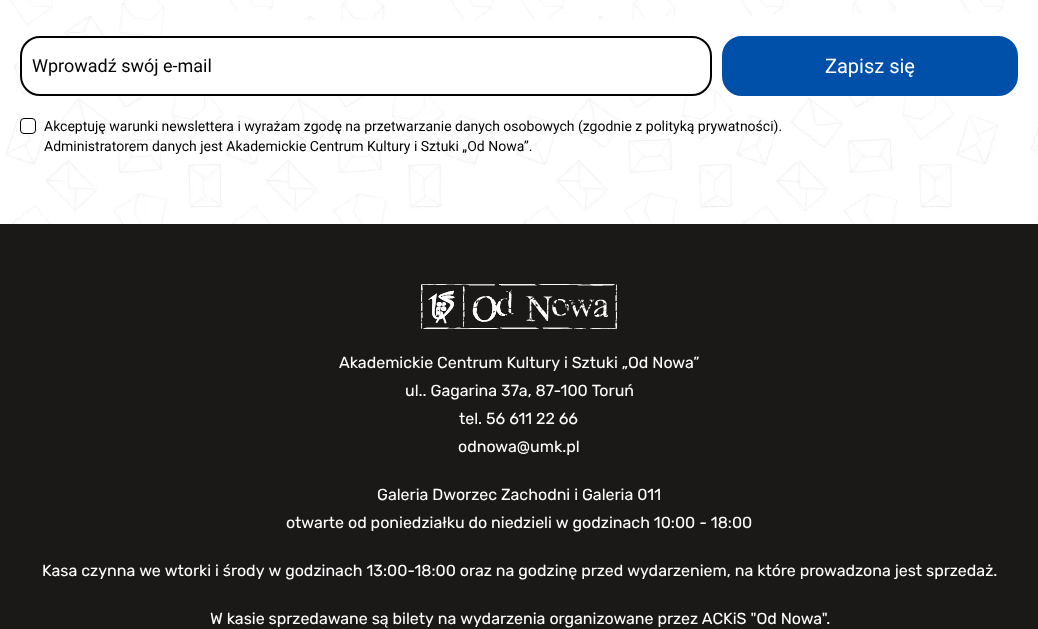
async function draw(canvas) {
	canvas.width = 1038;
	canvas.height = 629;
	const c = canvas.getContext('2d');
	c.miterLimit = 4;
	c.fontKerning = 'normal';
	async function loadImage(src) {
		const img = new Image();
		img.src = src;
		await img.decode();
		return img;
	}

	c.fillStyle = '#fff';
	c.fillRect(0, 0, 1038, 629);
	c.drawImage(await loadImage('img1.png'), 5, 0, 1033, 224);
	c.beginPath();
	c.roundRect(21, 37, 690, 58, 19);
	c.fill();
	c.strokeStyle = '#000';
	c.lineWidth = 2;
	c.stroke();
	c.font = '18px Roboto';
	c.fillStyle = '#000';
	c.fillText('Wprowadź swój e-mail', 32, 72);
	c.fillStyle = '#0050aa';
	c.beginPath();
	c.roundRect(723, 37, 294, 58, 19);
	c.fill();
	c.strokeStyle = '#0050aa';
	c.stroke();
	c.font = '20px Roboto';
	c.fillStyle = '#fff';
	c.fillText('Zapisz się', 825, 73);
	c.beginPath();
	c.roundRect(20.5, 118.5, 15, 15, 3.5);
	c.fill();
	c.strokeStyle = '#000';
	c.lineWidth = 1;
	c.stroke();
	c.font = '14px Roboto';
	c.fillStyle = '#000';
	c.fillText('Akceptuję warunki newslettera i wyrażam zgodę na przetwarzanie danych osobowych (zgodnie z polityką prywatności).', 44, 131);
	c.fillText('Administratorem danych jest Akademickie Centrum Kultury i Sztuki „Od Nowa”.', 44, 151);
	c.fillStyle = '#1b1918';
	c.fillRect(0, 224, 1038, 405);
	c.drawImage(await loadImage('img2.png'), 421, 284, 196, 45);
	c.font = '300 16px Rubik';
	c.fillStyle = '#fff';
	for (const [text, x, y] of [
		['Akademickie Centrum Kultury i Sztuki „Od Nowa”', 339, 368],
		['ul.. Gagarina 37a, 87-100 Toruń', 405, 396],
		['tel. 56 611 22 66', 459, 424],
		['odnowa@umk.pl', 458, 452],
		['Galeria Dworzec Zachodni i Galeria 011', 377, 500],
		['otwarte od poniedziałku do niedzieli w godzinach 10:00 - 18:00', 286, 528],
		['Kasa czynna we wtorki i środy w godzinach 13:00-18:00 oraz na godzinę przed wydarzeniem, na które prowadzona jest sprzedaż.', 42, 576],
		['W kasie sprzedawane są bilety na wydarzenia organizowane przez ACKiS "Od Nowa".', 210, 624],
	]) {
		c.fillText(text, x, y);
	}
}

draw(document.querySelector('canvas'));
